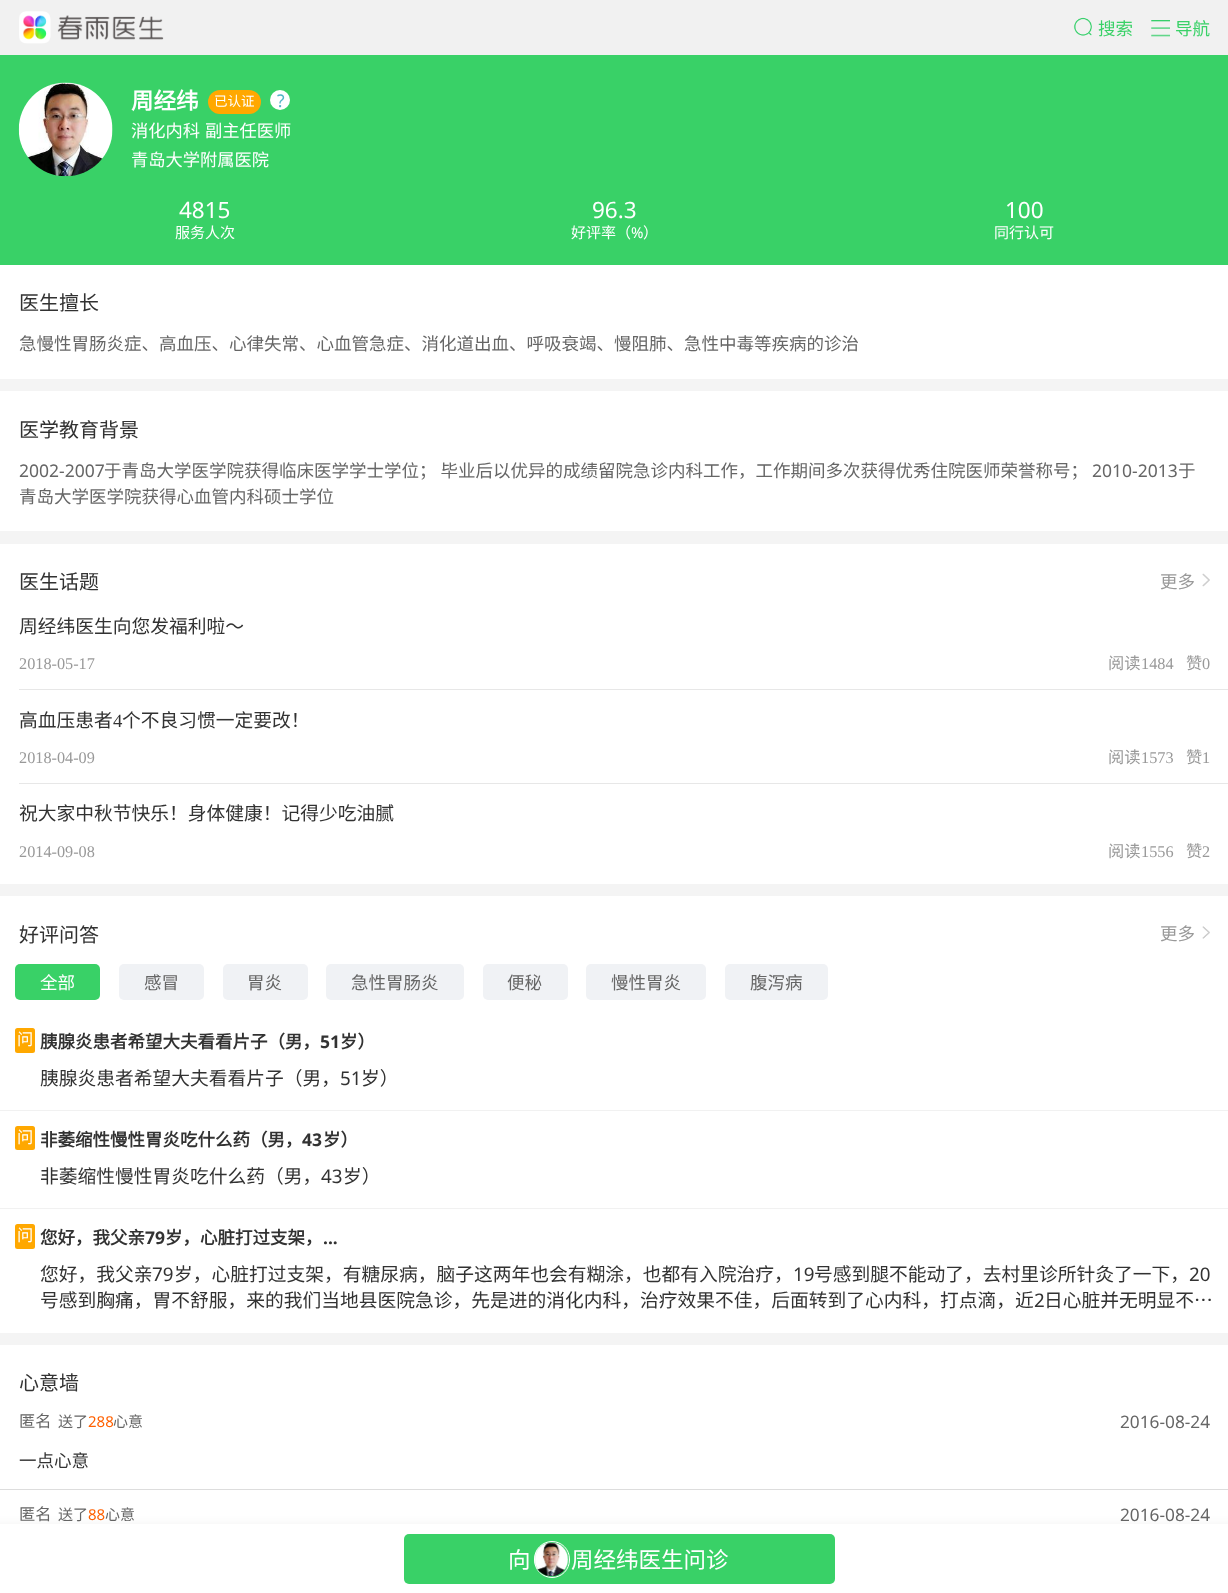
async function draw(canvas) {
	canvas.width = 1228;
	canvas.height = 1593;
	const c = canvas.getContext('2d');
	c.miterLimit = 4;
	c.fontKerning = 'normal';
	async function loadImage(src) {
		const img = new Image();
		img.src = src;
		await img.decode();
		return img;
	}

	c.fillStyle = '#f4f4f4';
	c.fillRect(0, 0, 1228, 1593);
	c.fillStyle = '#f1f1f1';
	c.fillRect(0, 0, 1228, 55);
	c.drawImage(await loadImage('img1.png'), 19, 11, 145, 33);
	c.drawImage(await loadImage('img2.png'), 1073, 17, 19, 19);
	c.font = '17.5px Noto Sans CJK SC';
	c.fillStyle = '#39d167';
	c.fillText('搜索', 1098, 35);
	c.drawImage(await loadImage('img3.png'), 1151, 20, 19, 17);
	c.fillText('导航', 1175, 35);
	c.fillRect(0, 55, 1228, 210);
	c.drawImage(await loadImage('img4.png'), 18, 82, 95, 95);
	c.font = 'bold 22.5px Noto Sans CJK SC';
	c.fillStyle = '#fff';
	c.fillText('周经纬', 131, 109);
	c.fillStyle = '#ffa800';
	c.beginPath();
	c.roundRect(208, 90, 53, 24, 12);
	c.fill();
	c.font = '13.5px Noto Sans CJK SC';
	c.fillStyle = '#fff';
	c.fillText('已认证', 214, 106);
	c.beginPath();
	c.arc(280, 100, 10, 0, 2 * Math.PI);
	c.fill();
	c.font = '17.5px Noto Sans';
	c.fillStyle = '#51b5c7';
	c.fillText('?', 277, 107);
	c.font = '17.25px Noto Sans CJK SC';
	c.fillStyle = '#fff';
	for (const [text, x, y] of [
		['消化内科', 131, 137],
		['副主任医师', 205, 137],
		['青岛大学附属医院', 131, 166],
	]) {
		c.fillText(text, x, y);
	}
	c.font = '22.5px Noto Sans';
	c.fillText('4815', 179, 218);
	c.font = '15px Noto Sans CJK SC';
	c.fillText('服务人次', 175, 238);
	c.font = '22.5px Noto Sans';
	c.fillText('96.3', 592, 218);
	c.font = '15px Noto Sans CJK SC';
	c.fillText('好评率（', 571, 238);
	c.font = '15px Noto Sans';
	c.fillText('%', 631, 238);
	c.font = '15px Noto Sans CJK SC';
	c.fillText('）', 643, 238);
	c.font = '22.5px Noto Sans';
	c.fillText('100', 1005, 218);
	c.font = '15px Noto Sans CJK SC';
	c.fillText('同行认可', 994, 238);
	c.fillRect(0, 265, 1228, 114);
	c.font = '20px Noto Sans CJK SC';
	c.fillStyle = '#323232';
	c.fillText('医生擅长', 19, 310);
	c.font = '17.5px Noto Sans CJK SC';
	c.fillStyle = '#666';
	c.fillText('急慢性胃肠炎症、高血压、心律失常、心血管急症、消化道出血、呼吸衰竭、慢阻肺、急性中毒等疾病的诊治', 19, 350);
	c.fillStyle = '#fff';
	c.fillRect(0, 391, 1228, 140);
	c.font = '20px Noto Sans CJK SC';
	c.fillStyle = '#323232';
	c.fillText('医学教育背景', 19, 437);
	c.font = '17.5px Noto Sans';
	c.fillStyle = '#666';
	c.fillText('2002-2007', 19, 477);
	c.font = '17.5px Noto Sans CJK SC';
	c.fillText('于青岛大学医学院获得临床医学学士学位； 毕业后以优异的成绩留院急诊内科工作，工作期间多次获得优秀住院医师荣誉称号；', 104, 477);
	c.font = '17.5px Noto Sans';
	c.fillText('2010-2013', 1092, 477);
	c.font = '17.5px Noto Sans CJK SC';
	c.fillText('于', 1178, 477);
	c.fillText('青岛大学医学院获得心血管内科硕士学位', 19, 503);
	c.fillStyle = '#fff';
	c.fillRect(0, 544, 1228, 340);
	c.font = '20px Noto Sans CJK SC';
	c.fillStyle = '#323232';
	c.fillText('医生话题', 19, 589);
	c.drawImage(await loadImage('img5.png'), 1202, 573, 8, 14);
	c.font = '17.5px Noto Sans CJK SC';
	c.fillStyle = '#999';
	c.fillText('更多', 1160, 588);
	c.font = '18.75px Noto Sans CJK SC';
	c.fillStyle = '#323232';
	c.fillText('周经纬医生向您发福利啦～', 19, 633);
	c.font = '16.25px Liberation Serif';
	c.fillStyle = '#999';
	c.fillText('2018-05-17', 19, 669);
	c.font = '16.25px Noto Sans CJK SC';
	c.fillText('阅读', 1108, 669);
	c.font = '16.25px Liberation Serif';
	c.fillText('1484', 1141, 669);
	c.font = '16.25px Noto Sans CJK SC';
	c.fillText('赞', 1186, 669);
	c.font = '16.25px Liberation Serif';
	c.fillText('0', 1202, 669);
	c.fillStyle = '#e7e7e7';
	c.fillRect(19, 689, 1209, 1);
	c.font = '18.75px Noto Sans CJK SC';
	c.fillStyle = '#323232';
	c.fillText('高血压患者', 19, 727);
	c.font = '18.75px Liberation Serif';
	c.fillText('4', 113, 727);
	c.font = '18.75px Noto Sans CJK SC';
	c.fillText('个不良习惯一定要改！', 122, 727);
	c.font = '16.25px Liberation Serif';
	c.fillStyle = '#999';
	c.fillText('2018-04-09', 19, 763);
	c.font = '16.25px Noto Sans CJK SC';
	c.fillText('阅读', 1108, 763);
	c.font = '16.25px Liberation Serif';
	c.fillText('1573', 1141, 763);
	c.font = '16.25px Noto Sans CJK SC';
	c.fillText('赞', 1186, 763);
	c.font = '16.25px Liberation Serif';
	c.fillText('1', 1202, 763);
	c.fillStyle = '#e7e7e7';
	c.fillRect(19, 783, 1209, 1);
	c.font = '18.75px Noto Sans CJK SC';
	c.fillStyle = '#323232';
	c.fillText('祝大家中秋节快乐！身体健康！记得少吃油腻', 19, 820);
	c.font = '16.25px Liberation Serif';
	c.fillStyle = '#999';
	c.fillText('2014-09-08', 19, 857);
	c.font = '16.25px Noto Sans CJK SC';
	c.fillText('阅读', 1108, 857);
	c.font = '16.25px Liberation Serif';
	c.fillText('1556', 1141, 857);
	c.font = '16.25px Noto Sans CJK SC';
	c.fillText('赞', 1186, 857);
	c.font = '16.25px Liberation Serif';
	c.fillText('2', 1202, 857);
	c.fillStyle = '#fff';
	c.fillRect(0, 896, 1228, 437);
	c.font = '20px Noto Sans CJK SC';
	c.fillStyle = '#323232';
	c.fillText('好评问答', 19, 942);
	c.drawImage(await loadImage('img6.png'), 1202, 926, 8, 13);
	c.font = '17.5px Noto Sans CJK SC';
	c.fillStyle = '#999';
	c.fillText('更多', 1160, 940);
	c.fillStyle = '#39d167';
	c.beginPath();
	c.roundRect(15, 964, 85, 36, 5);
	c.fill();
	c.fillStyle = '#fff';
	c.fillText('全部', 40, 989);
	c.fillStyle = '#f0f2f5';
	c.beginPath();
	c.roundRect(119, 964, 85, 36, 5);
	c.fill();
	c.fillStyle = '#666';
	c.fillText('感冒', 144, 989);
	c.fillStyle = '#f0f2f5';
	c.beginPath();
	c.roundRect(223, 964, 85, 36, 5);
	c.fill();
	c.fillStyle = '#666';
	c.fillText('胃炎', 247, 989);
	c.fillStyle = '#f0f2f5';
	c.beginPath();
	c.roundRect(326, 964, 138, 36, 5);
	c.fill();
	c.fillStyle = '#666';
	c.fillText('急性胃肠炎', 351, 989);
	c.fillStyle = '#f0f2f5';
	c.beginPath();
	c.roundRect(483, 964, 85, 36, 5);
	c.fill();
	c.fillStyle = '#666';
	c.fillText('便秘', 507, 989);
	c.fillStyle = '#f0f2f5';
	c.beginPath();
	c.roundRect(586, 964, 120, 36, 5);
	c.fill();
	c.fillStyle = '#666';
	c.fillText('慢性胃炎', 611, 989);
	c.fillStyle = '#f0f2f5';
	c.beginPath();
	c.roundRect(725, 964, 103, 36, 5);
	c.fill();
	c.fillStyle = '#666';
	c.fillText('腹泻病', 750, 989);
	c.fillStyle = '#ffa800';
	c.beginPath();
	c.roundRect(15, 1028, 20, 25, 2.5);
	c.fill();
	c.font = '16.25px Noto Sans CJK SC';
	c.fillStyle = '#fff';
	c.fillText('问', 17, 1045);
	c.font = 'bold 17.5px Noto Sans CJK SC';
	c.fillStyle = '#323232';
	c.fillText('胰腺炎患者希望大夫看看片子（男，', 40, 1048);
	c.font = 'bold 17.5px Noto Sans';
	c.fillText('51', 320, 1048);
	c.font = 'bold 17.5px Noto Sans CJK SC';
	c.fillText('岁）', 340, 1048);
	c.font = '18.75px Noto Sans CJK SC';
	c.fillText('胰腺炎患者希望大夫看看片子（男，', 40, 1085);
	c.font = '18.75px Noto Sans';
	c.fillText('51', 340, 1085);
	c.font = '18.75px Noto Sans CJK SC';
	c.fillText('岁）', 361, 1085);
	c.fillStyle = '#f1f1f1';
	c.fillRect(0, 1110, 1228, 1);
	c.fillStyle = '#ffa800';
	c.beginPath();
	c.roundRect(15, 1126, 20, 24, 2.5);
	c.fill();
	c.font = '16.25px Noto Sans CJK SC';
	c.fillStyle = '#fff';
	c.fillText('问', 17, 1143);
	c.font = 'bold 17.5px Noto Sans CJK SC';
	c.fillStyle = '#323232';
	c.fillText('非萎缩性慢性胃炎吃什么药（男，', 40, 1146);
	c.font = 'bold 17.5px Noto Sans';
	c.fillText('43', 302, 1146);
	c.font = 'bold 17.5px Noto Sans CJK SC';
	c.fillText('岁）', 323, 1146);
	c.font = '18.75px Noto Sans CJK SC';
	c.fillText('非萎缩性慢性胃炎吃什么药（男，', 40, 1183);
	c.font = '18.75px Noto Sans';
	c.fillText('43', 321, 1183);
	c.font = '18.75px Noto Sans CJK SC';
	c.fillText('岁）', 343, 1183);
	c.fillStyle = '#f1f1f1';
	c.fillRect(0, 1208, 1228, 1);
	c.fillStyle = '#ffa800';
	c.beginPath();
	c.roundRect(15, 1224, 20, 25, 2.5);
	c.fill();
	c.font = '16.25px Noto Sans CJK SC';
	c.fillStyle = '#fff';
	c.fillText('问', 17, 1241);
	c.font = 'bold 17.5px Noto Sans CJK SC';
	c.fillStyle = '#323232';
	c.fillText('您好，我父亲', 40, 1244);
	c.font = 'bold 17.5px Noto Sans';
	c.fillText('79', 145, 1244);
	c.font = 'bold 17.5px Noto Sans CJK SC';
	c.fillText('岁，心脏打过支架，', 165, 1244);
	c.font = 'bold 17.5px Noto Sans';
	c.fillText('...', 323, 1244);
	c.font = '18.75px Noto Sans CJK SC';
	c.fillText('您好，我父亲', 40, 1281);
	c.font = '18.75px Noto Sans';
	c.fillText('79', 152, 1281);
	c.font = '18.75px Noto Sans CJK SC';
	c.fillText('岁，心脏打过支架，有糖尿病，脑子这两年也会有糊涂，也都有入院治疗，', 174, 1281);
	c.font = '18.75px Noto Sans';
	c.fillText('19', 793, 1281);
	c.font = '18.75px Noto Sans CJK SC';
	c.fillText('号感到腿不能动了，去村里诊所针灸了一下，', 814, 1281);
	c.font = '18.75px Noto Sans';
	c.fillText('20', 1189, 1281);
	c.font = '18.75px Noto Sans CJK SC';
	c.fillText('号感到胸痛，胃不舒服，来的我们当地县医院急诊，先是进的消化内科，治疗效果不佳，后面转到了心内科，打点滴，近', 40, 1307);
	c.font = '18.75px Noto Sans';
	c.fillText('2', 1034, 1307);
	c.font = '18.75px Noto Sans CJK SC';
	c.fillText('日心脏并无明显不…', 1044, 1307);
	c.fillStyle = '#fff';
	c.fillRect(0, 1345, 1228, 179);
	c.font = '20px Noto Sans CJK SC';
	c.fillStyle = '#323232';
	c.fillText('心意墙', 19, 1390);
	c.fillStyle = '#ddd';
	c.fillRect(0, 1489, 1228, 1);
	c.font = '16.25px Noto Sans CJK SC';
	c.fillStyle = '#666';
	c.fillText('匿名', 19, 1427);
	c.font = '15px Noto Sans CJK SC';
	c.fillText('送了', 58, 1427);
	c.font = '15px Noto Sans';
	c.fillStyle = '#ff6000';
	c.fillText('288', 88, 1427);
	c.font = '15px Noto Sans CJK SC';
	c.fillStyle = '#666';
	c.fillText('心意', 113, 1427);
	c.font = '17.25px Noto Sans';
	c.fillText('2016-08-24', 1120, 1428);
	c.font = '17.5px Noto Sans CJK SC';
	c.fillStyle = '#323232';
	c.fillText('一点心意', 19, 1467);
	c.font = '16.25px Noto Sans CJK SC';
	c.fillStyle = '#666';
	c.fillText('匿名', 19, 1520);
	c.font = '15px Noto Sans CJK SC';
	c.fillText('送了', 58, 1520);
	c.font = '15px Noto Sans';
	c.fillStyle = '#ff6000';
	c.fillText('88', 88, 1520);
	c.font = '15px Noto Sans CJK SC';
	c.fillStyle = '#666';
	c.fillText('心意', 105, 1520);
	c.font = '17.25px Noto Sans';
	c.fillText('2016-08-24', 1120, 1521);
	c.fillStyle = '#00000014';
	c.filter = 'blur(5.5px)';
	c.beginPath();
	c.rect(-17, 1526, 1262, 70);
	c.fill();
	c.filter = 'none';
	c.fillStyle = '#fff';
	c.fillRect(0, 1524, 1228, 69);
	c.fillStyle = '#39d167';
	c.beginPath();
	c.roundRect(404, 1534, 431, 50, 5);
	c.fill();
	c.font = '22.5px Noto Sans CJK SC';
	c.fillStyle = '#fff';
	c.fillText('向', 508, 1568);
	c.beginPath();
	c.roundRect(534.5, 1541.5, 35, 36, 17.5);
	c.strokeStyle = '#fff';
	c.stroke();
	c.drawImage(await loadImage('img7.png'), 534, 1542, 35, 35);
	c.fillText('周经纬医生问诊', 571, 1568);
}

draw(document.querySelector('canvas'));
